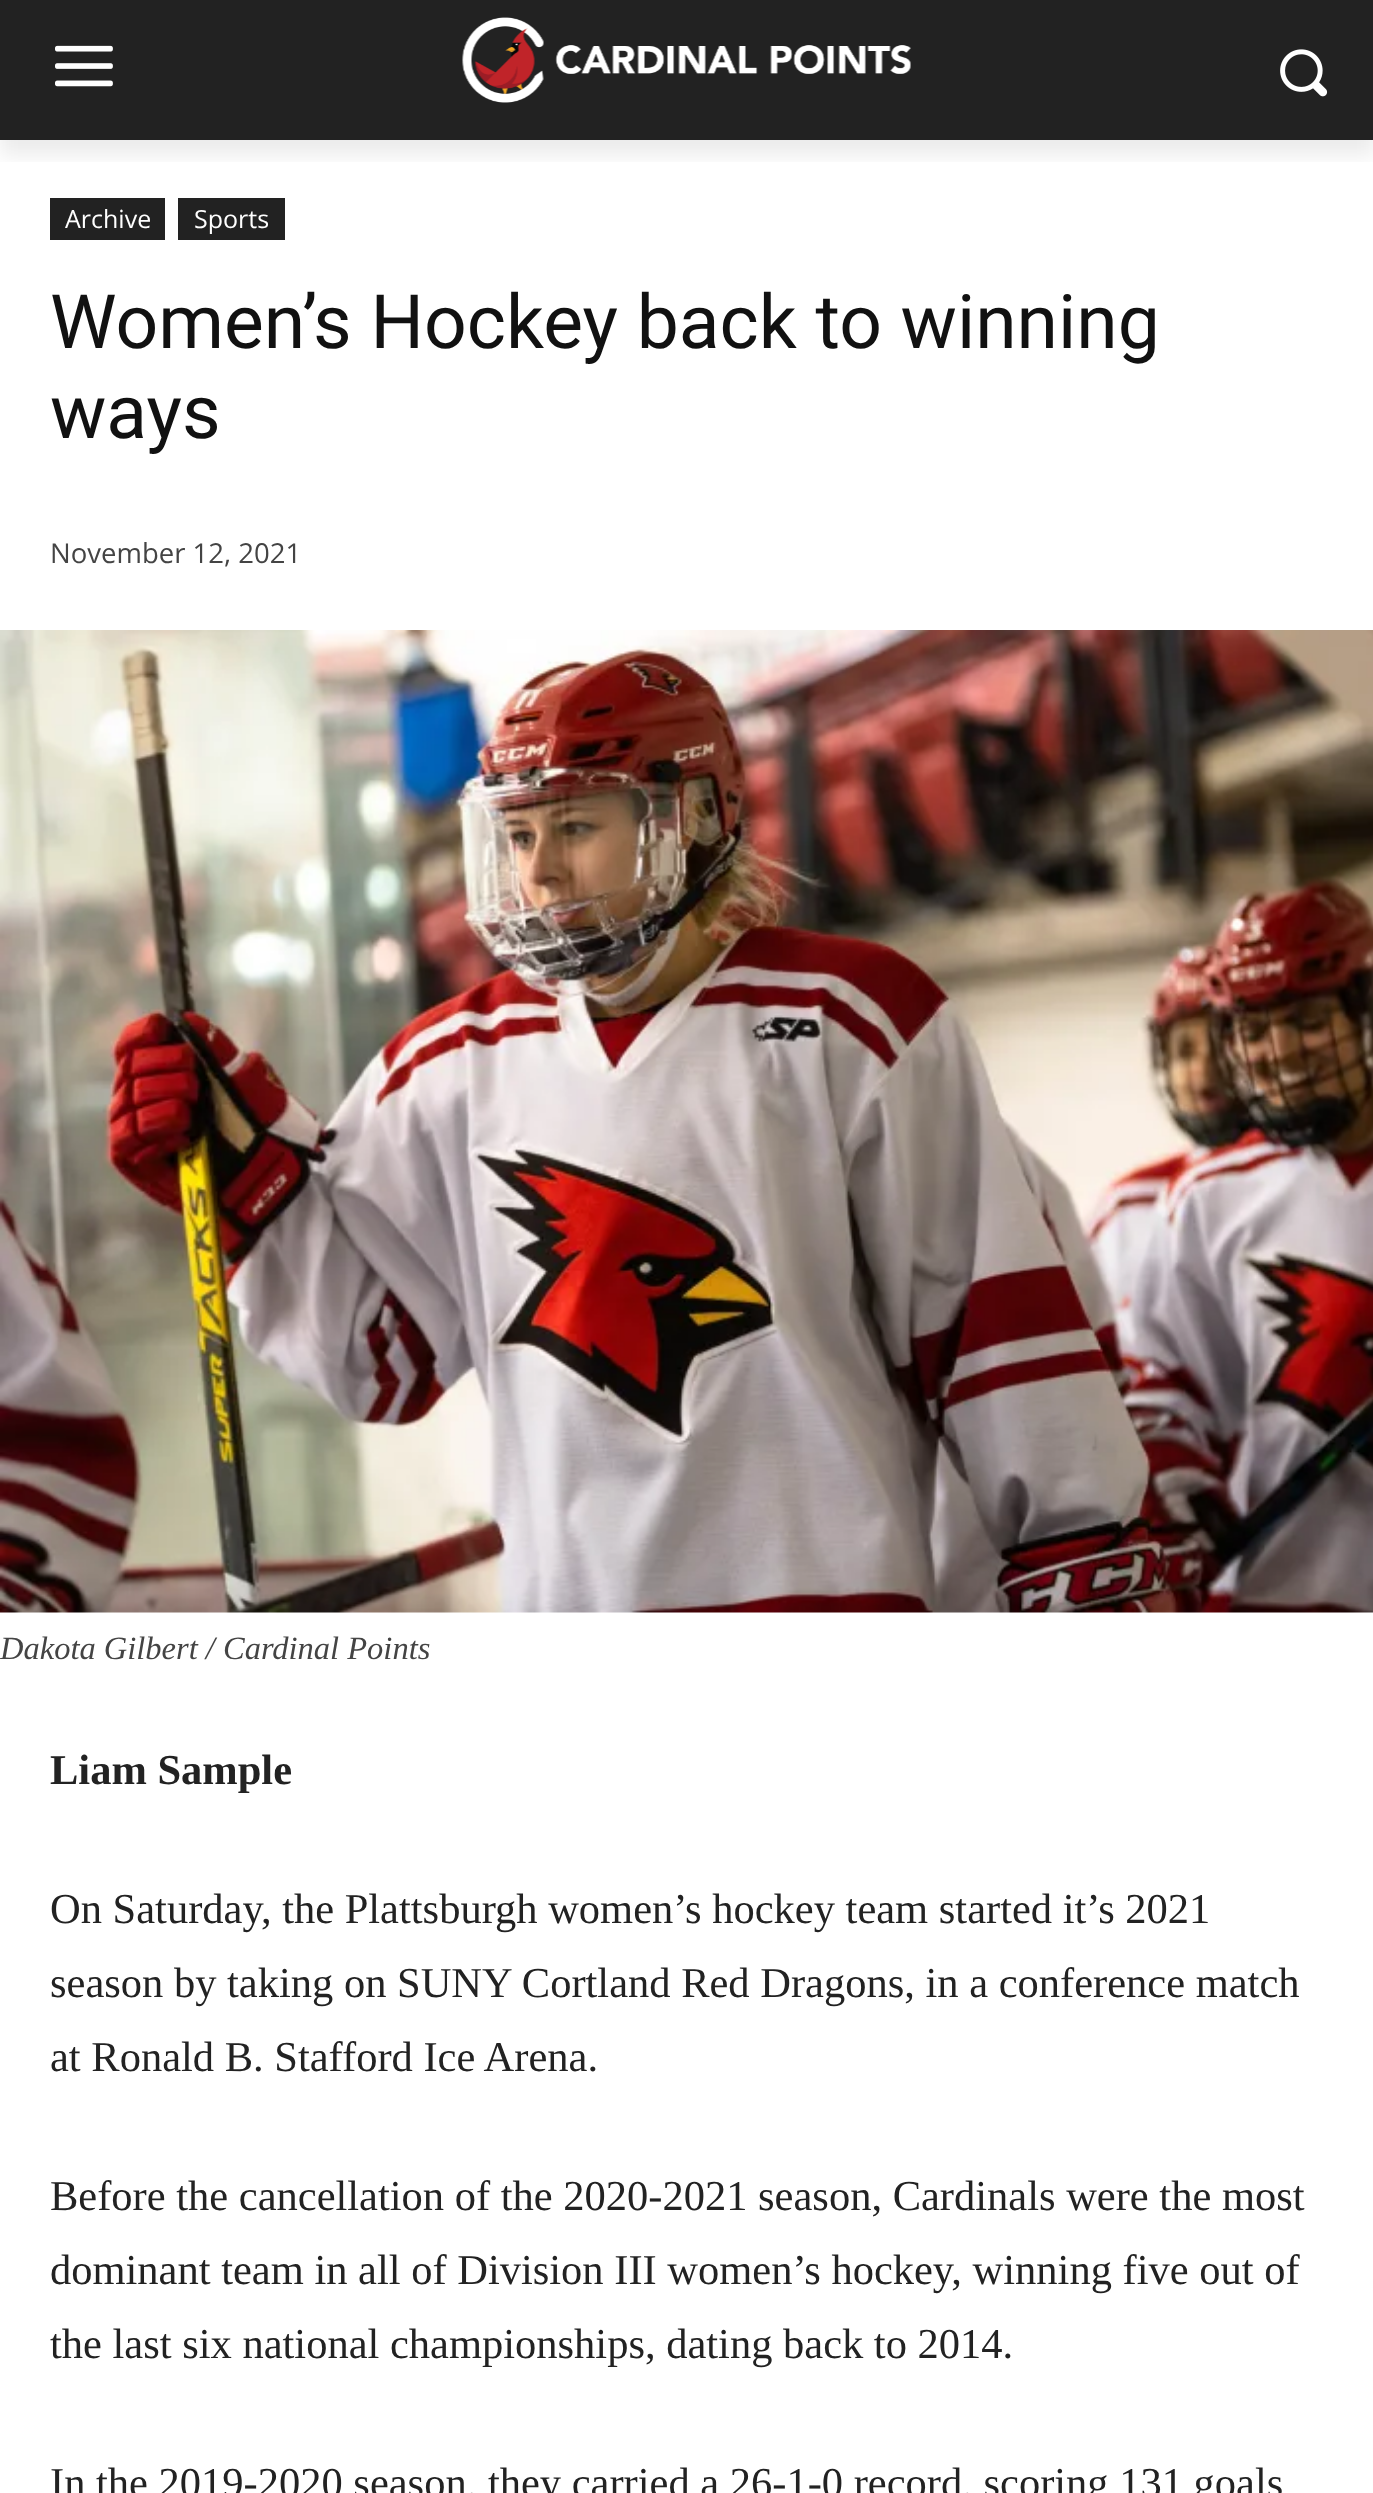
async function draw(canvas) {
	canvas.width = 1373;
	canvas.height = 2493;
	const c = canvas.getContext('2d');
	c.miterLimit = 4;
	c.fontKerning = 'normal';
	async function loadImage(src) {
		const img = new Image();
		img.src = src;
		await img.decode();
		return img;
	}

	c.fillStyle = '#fff';
	c.fillRect(0, 0, 1373, 2493);
	c.fillStyle = '#222';
	c.fillRect(0, 0, 1373, 140);
	c.drawImage(await loadImage('img1.png'), 55, 45, 58, 42);
	c.drawImage(await loadImage('img2.png'), 462, 17, 449, 86);
	c.drawImage(await loadImage('img3.png'), 1280, 49, 48, 48);
	c.save();
	c.beginPath();
	c.rect(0, 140, 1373, 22);
	c.clip();
	c.fillStyle = '#00000014';
	c.filter = 'blur(10px)';
	c.beginPath();
	c.rect(0, 15, 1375, 140);
	c.fill();
	c.filter = 'none';
	c.restore();
	c.fillRect(50, 198, 115, 42);
	c.font = '25px Open Sans';
	c.fillStyle = '#fff';
	c.fillText('Archive', 65, 228);
	c.fillStyle = '#222';
	c.fillRect(178, 198, 107, 42);
	c.fillStyle = '#fff';
	c.fillText('Sports', 194, 228);
	c.font = '75px Roboto';
	c.fillStyle = '#111';
	c.fillText('Women’s Hockey back to winning', 50, 348);
	c.fillText('ways', 50, 438);
	c.font = '27.5px Open Sans';
	c.fillStyle = '#444';
	c.fillText('November 12, 2021', 50, 563);
	c.drawImage(await loadImage('img4.png'), 0, 630, 1373, 983);
	c.font = 'italic 32.5px Liberation Serif';
	c.fillText('Dakota Gilbert / Cardinal Points', 0, 1659);
	c.font = 'bold 42.5px Liberation Serif';
	c.fillStyle = '#222';
	c.fillText('Liam Sample', 50, 1784);
	c.font = '42.5px Liberation Serif';
	for (const [text, x, y] of [
		['On Saturday, the Plattsburgh women’s hockey team started it’s 2021', 50, 1923],
		['season by taking on SUNY Cortland Red Dragons, in a conference match', 50, 1997],
		['at Ronald B. Stafford Ice Arena.', 50, 2071],
		['Before the cancellation of the 2020-2021 season, Cardinals were the most', 50, 2210],
		['dominant team in all of Division III women’s hockey, winning five out of', 50, 2284],
		['the last six national championships, dating back to 2014.', 50, 2358],
		['In the 2019-2020 season, they carried a 26-1-0 record, scoring 131 goals', 50, 2497],
	]) {
		c.fillText(text, x, y);
	}
}

draw(document.querySelector('canvas'));
